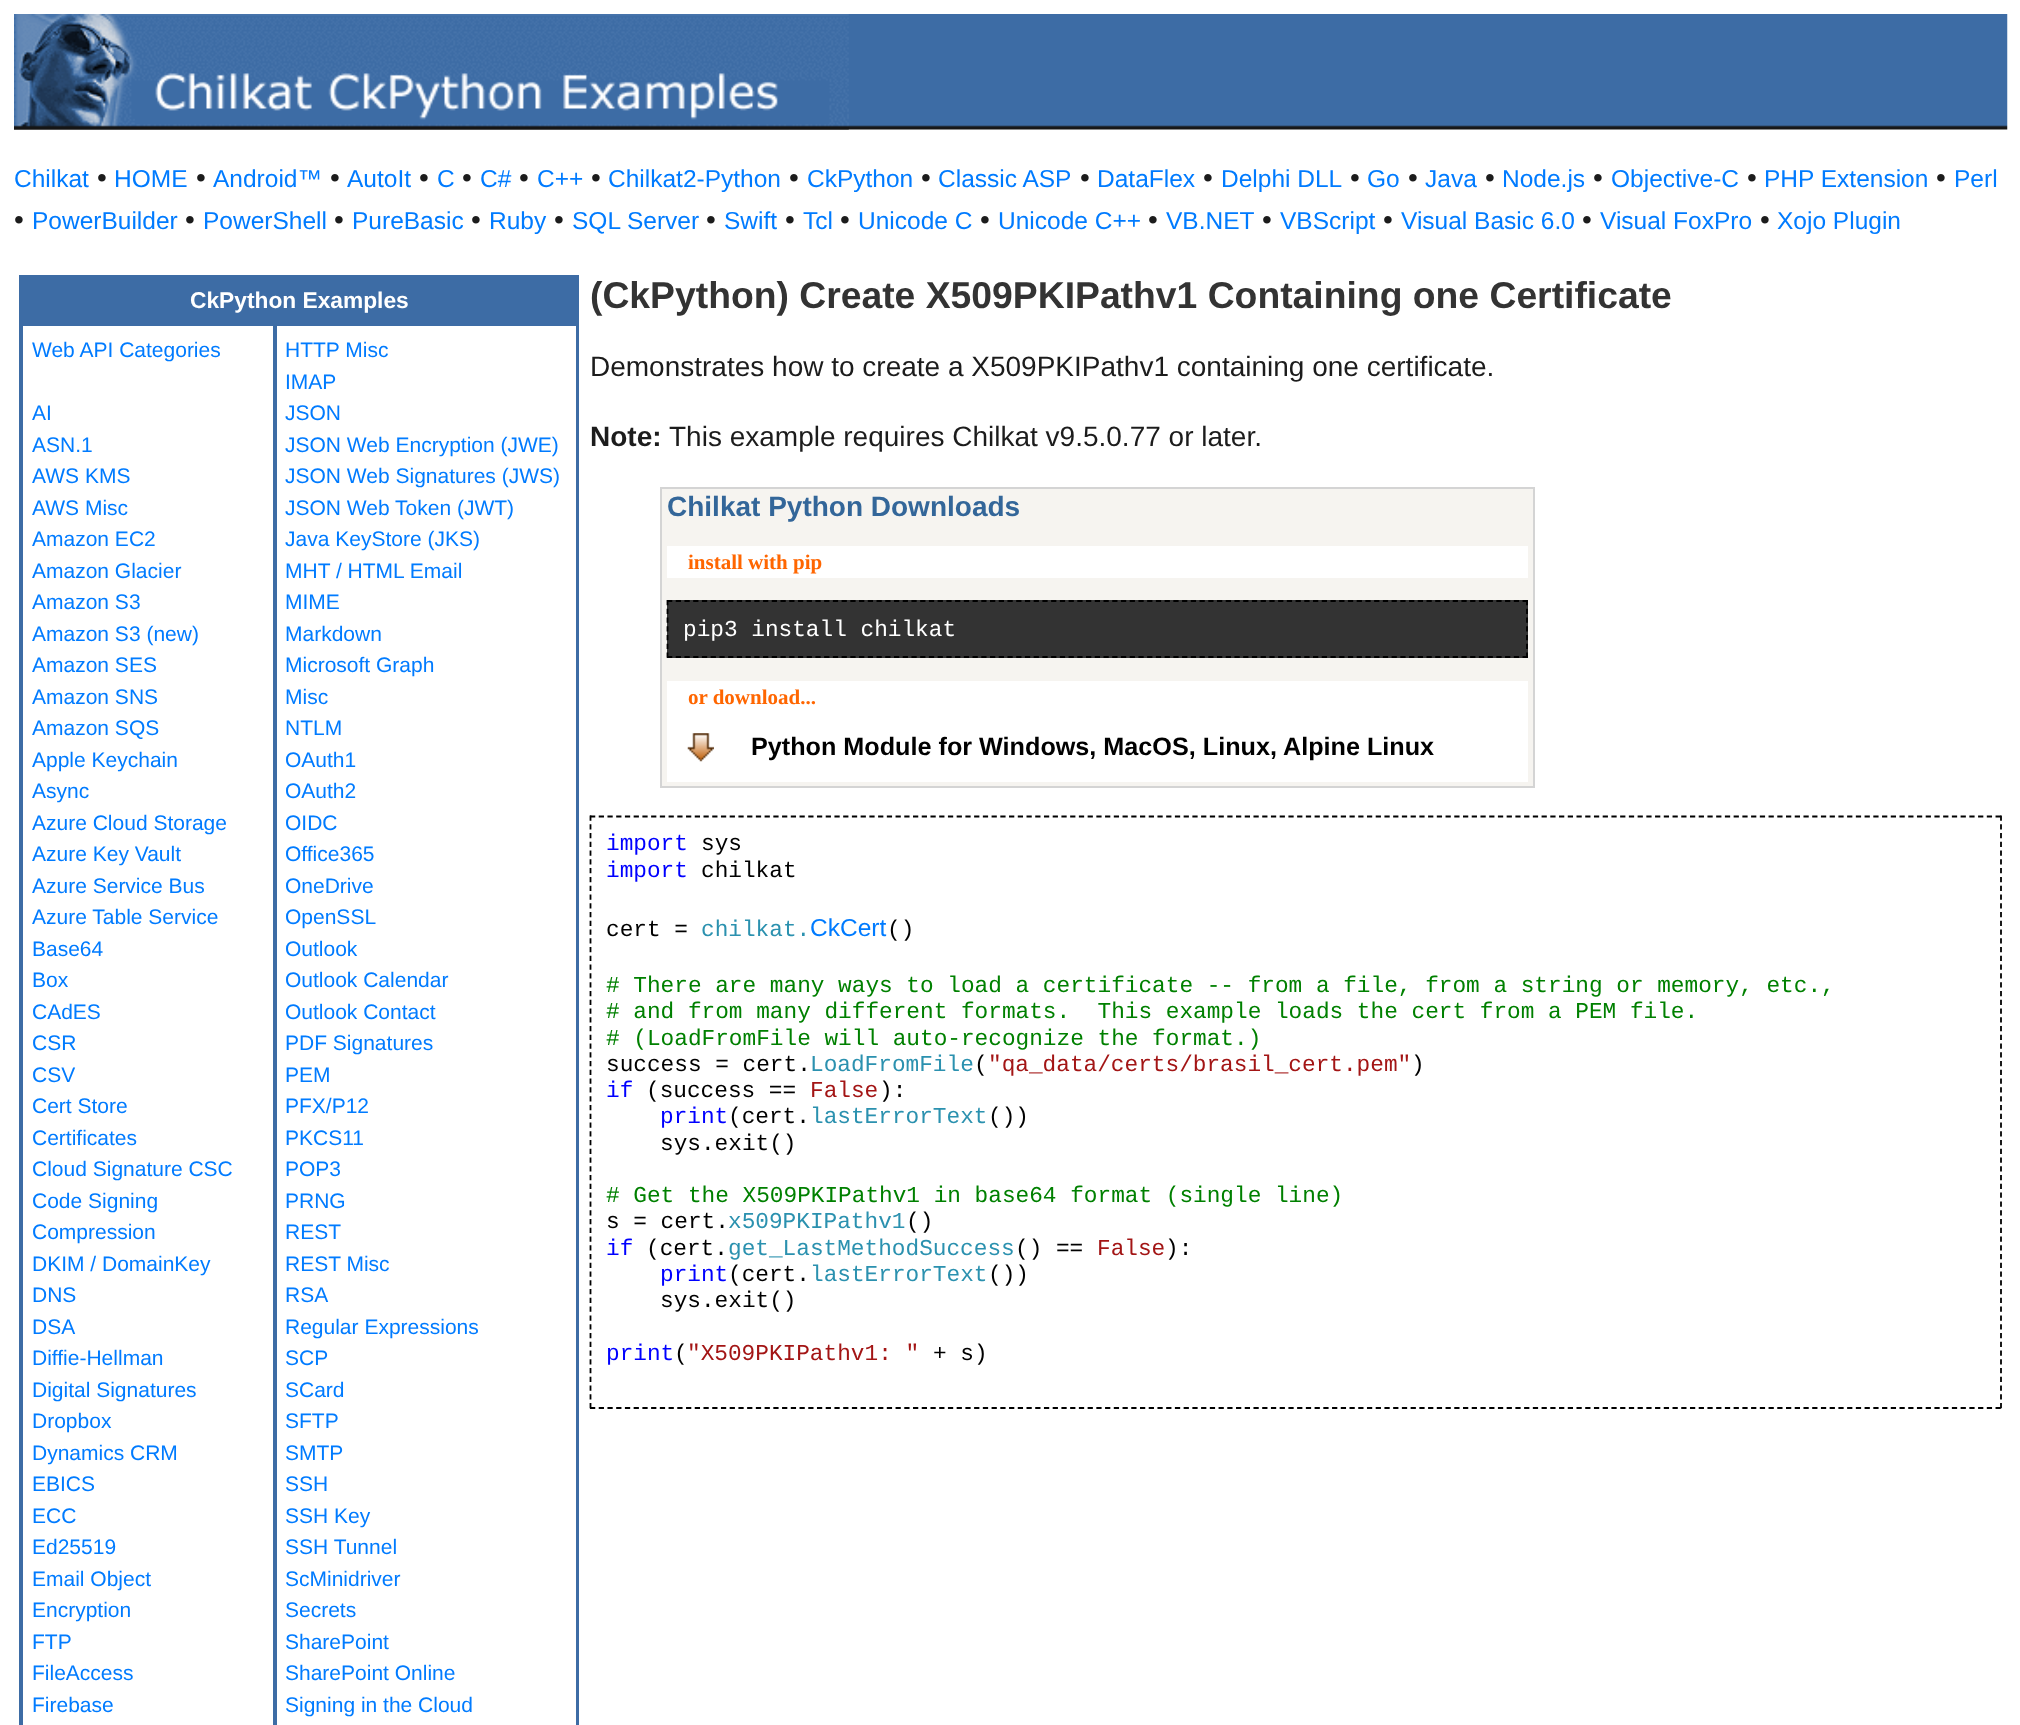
async function draw(canvas) {
	canvas.width = 2020;
	canvas.height = 1725;
	const c = canvas.getContext('2d');
	c.miterLimit = 4;
	c.fontKerning = 'normal';
	async function loadImage(src) {
		const img = new Image();
		img.src = src;
		await img.decode();
		return img;
	}

	c.fillStyle = '#fff';
	c.fillRect(0, 0, 2020, 1725);
	c.drawImage(await loadImage('img1.png'), 14, 14, 1994, 116);
	c.drawImage(await loadImage('img2.png'), 14, 14, 835, 116);
	c.font = '24.5px Liberation Sans';
	c.fillStyle = '#007bff';
	c.fillText('Chilkat', 14, 187);
	c.font = '28px Liberation Sans';
	c.fillStyle = '#1c1c1c';
	c.fillText('•', 97, 187);
	c.font = '24.5px Liberation Sans';
	c.fillStyle = '#007bff';
	c.fillText('HOME', 114, 187);
	c.font = '28px Liberation Sans';
	c.fillStyle = '#1c1c1c';
	c.fillText('•', 196, 187);
	c.font = '24.5px Liberation Sans';
	c.fillStyle = '#007bff';
	c.fillText('Android™', 213, 187);
	c.font = '28px Liberation Sans';
	c.fillStyle = '#1c1c1c';
	c.fillText('•', 330, 187);
	c.font = '24.5px Liberation Sans';
	c.fillStyle = '#007bff';
	c.fillText('AutoIt', 347, 187);
	c.font = '28px Liberation Sans';
	c.fillStyle = '#1c1c1c';
	c.fillText('•', 419, 187);
	c.font = '24.5px Liberation Sans';
	c.fillStyle = '#007bff';
	c.fillText('C', 437, 187);
	c.font = '28px Liberation Sans';
	c.fillStyle = '#1c1c1c';
	c.fillText('•', 462, 187);
	c.font = '24.5px Liberation Sans';
	c.fillStyle = '#007bff';
	c.fillText('C#', 480, 187);
	c.font = '28px Liberation Sans';
	c.fillStyle = '#1c1c1c';
	c.fillText('•', 519, 187);
	c.font = '24.5px Liberation Sans';
	c.fillStyle = '#007bff';
	c.fillText('C++', 537, 187);
	c.font = '28px Liberation Sans';
	c.fillStyle = '#1c1c1c';
	c.fillText('•', 591, 187);
	c.font = '24.5px Liberation Sans';
	c.fillStyle = '#007bff';
	c.fillText('Chilkat2-Python', 608, 187);
	c.font = '28px Liberation Sans';
	c.fillStyle = '#1c1c1c';
	c.fillText('•', 789, 187);
	c.font = '24.5px Liberation Sans';
	c.fillStyle = '#007bff';
	c.fillText('CkPython', 807, 187);
	c.font = '28px Liberation Sans';
	c.fillStyle = '#1c1c1c';
	c.fillText('•', 921, 187);
	c.font = '24.5px Liberation Sans';
	c.fillStyle = '#007bff';
	c.fillText('Classic ASP', 938, 187);
	c.font = '28px Liberation Sans';
	c.fillStyle = '#1c1c1c';
	c.fillText('•', 1080, 187);
	c.font = '24.5px Liberation Sans';
	c.fillStyle = '#007bff';
	c.fillText('DataFlex', 1097, 187);
	c.font = '28px Liberation Sans';
	c.fillStyle = '#1c1c1c';
	c.fillText('•', 1203, 187);
	c.font = '24.5px Liberation Sans';
	c.fillStyle = '#007bff';
	c.fillText('Delphi DLL', 1221, 187);
	c.font = '28px Liberation Sans';
	c.fillStyle = '#1c1c1c';
	c.fillText('•', 1350, 187);
	c.font = '24.5px Liberation Sans';
	c.fillStyle = '#007bff';
	c.fillText('Go', 1367, 187);
	c.font = '28px Liberation Sans';
	c.fillStyle = '#1c1c1c';
	c.fillText('•', 1408, 187);
	c.font = '24.5px Liberation Sans';
	c.fillStyle = '#007bff';
	c.fillText('Java', 1425, 187);
	c.font = '28px Liberation Sans';
	c.fillStyle = '#1c1c1c';
	c.fillText('•', 1485, 187);
	c.font = '24.5px Liberation Sans';
	c.fillStyle = '#007bff';
	c.fillText('Node.js', 1502, 187);
	c.font = '28px Liberation Sans';
	c.fillStyle = '#1c1c1c';
	c.fillText('•', 1593, 187);
	c.font = '24.5px Liberation Sans';
	c.fillStyle = '#007bff';
	c.fillText('Objective-C', 1611, 187);
	c.font = '28px Liberation Sans';
	c.fillStyle = '#1c1c1c';
	c.fillText('•', 1747, 187);
	c.font = '24.5px Liberation Sans';
	c.fillStyle = '#007bff';
	c.fillText('PHP Extension', 1764, 187);
	c.font = '28px Liberation Sans';
	c.fillStyle = '#1c1c1c';
	c.fillText('•', 1936, 187);
	c.font = '24.5px Liberation Sans';
	c.fillStyle = '#007bff';
	c.fillText('Perl', 1954, 187);
	c.font = '28px Liberation Sans';
	c.fillStyle = '#1c1c1c';
	c.fillText('•', 14, 229);
	c.font = '24.5px Liberation Sans';
	c.fillStyle = '#007bff';
	c.fillText('PowerBuilder', 32, 229);
	c.font = '28px Liberation Sans';
	c.fillStyle = '#1c1c1c';
	c.fillText('•', 185, 229);
	c.font = '24.5px Liberation Sans';
	c.fillStyle = '#007bff';
	c.fillText('PowerShell', 203, 229);
	c.font = '28px Liberation Sans';
	c.fillStyle = '#1c1c1c';
	c.fillText('•', 334, 229);
	c.font = '24.5px Liberation Sans';
	c.fillStyle = '#007bff';
	c.fillText('PureBasic', 352, 229);
	c.font = '28px Liberation Sans';
	c.fillStyle = '#1c1c1c';
	c.fillText('•', 471, 229);
	c.font = '24.5px Liberation Sans';
	c.fillStyle = '#007bff';
	c.fillText('Ruby', 489, 229);
	c.font = '28px Liberation Sans';
	c.fillStyle = '#1c1c1c';
	c.fillText('•', 554, 229);
	c.font = '24.5px Liberation Sans';
	c.fillStyle = '#007bff';
	c.fillText('SQL Server', 572, 229);
	c.font = '28px Liberation Sans';
	c.fillStyle = '#1c1c1c';
	c.fillText('•', 706, 229);
	c.font = '24.5px Liberation Sans';
	c.fillStyle = '#007bff';
	c.fillText('Swift', 724, 229);
	c.font = '28px Liberation Sans';
	c.fillStyle = '#1c1c1c';
	c.fillText('•', 785, 229);
	c.font = '24.5px Liberation Sans';
	c.fillStyle = '#007bff';
	c.fillText('Tcl', 803, 229);
	c.font = '28px Liberation Sans';
	c.fillStyle = '#1c1c1c';
	c.fillText('•', 840, 229);
	c.font = '24.5px Liberation Sans';
	c.fillStyle = '#007bff';
	c.fillText('Unicode C', 858, 229);
	c.font = '28px Liberation Sans';
	c.fillStyle = '#1c1c1c';
	c.fillText('•', 980, 229);
	c.font = '24.5px Liberation Sans';
	c.fillStyle = '#007bff';
	c.fillText('Unicode C++', 998, 229);
	c.font = '28px Liberation Sans';
	c.fillStyle = '#1c1c1c';
	c.fillText('•', 1148, 229);
	c.font = '24.5px Liberation Sans';
	c.fillStyle = '#007bff';
	c.fillText('VB.NET', 1166, 229);
	c.font = '28px Liberation Sans';
	c.fillStyle = '#1c1c1c';
	c.fillText('•', 1262, 229);
	c.font = '24.5px Liberation Sans';
	c.fillStyle = '#007bff';
	c.fillText('VBScript', 1280, 229);
	c.font = '28px Liberation Sans';
	c.fillStyle = '#1c1c1c';
	c.fillText('•', 1383, 229);
	c.font = '24.5px Liberation Sans';
	c.fillStyle = '#007bff';
	c.fillText('Visual Basic 6.0', 1401, 229);
	c.font = '28px Liberation Sans';
	c.fillStyle = '#1c1c1c';
	c.fillText('•', 1582, 229);
	c.font = '24.5px Liberation Sans';
	c.fillStyle = '#007bff';
	c.fillText('Visual FoxPro', 1600, 229);
	c.font = '28px Liberation Sans';
	c.fillStyle = '#1c1c1c';
	c.fillText('•', 1760, 229);
	c.font = '24.5px Liberation Sans';
	c.fillStyle = '#007bff';
	c.fillText('Xojo Plugin', 1777, 229);
	c.strokeStyle = '#3d6ca5';
	c.lineWidth = 2;
	c.strokeRect(20, 276, 558, 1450);
	c.fillStyle = '#3d6ca5';
	c.fillRect(21, 277, 556, 47);
	c.font = 'bold 22.75px Liberation Sans';
	c.fillStyle = '#fff';
	c.fillText('CkPython Examples', 190, 308);
	c.strokeRect(22, 325, 252, 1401);
	c.font = '21px Liberation Sans';
	c.fillStyle = '#007bff';
	for (const [text, x, y] of [
		['Web API Categories', 32, 357],
		['AI', 32, 420],
		['ASN.1', 32, 452],
		['AWS KMS', 32, 483],
		['AWS Misc', 32, 515],
		['Amazon EC2', 32, 546],
		['Amazon Glacier', 32, 578],
		['Amazon S3', 32, 609],
		['Amazon S3 (new)', 32, 641],
		['Amazon SES', 32, 672],
		['Amazon SNS', 32, 704],
		['Amazon SQS', 32, 735],
		['Apple Keychain', 32, 767],
		['Async', 32, 798],
		['Azure Cloud Storage', 32, 830],
		['Azure Key Vault', 32, 861],
		['Azure Service Bus', 32, 893],
		['Azure Table Service', 32, 924],
		['Base64', 32, 956],
		['Box', 32, 987],
		['CAdES', 32, 1019],
		['CSR', 32, 1050],
		['CSV', 32, 1082],
		['Cert Store', 32, 1113],
		['Certificates', 32, 1145],
		['Cloud Signature CSC', 32, 1176],
		['Code Signing', 32, 1208],
		['Compression', 32, 1239],
		['DKIM / DomainKey', 32, 1271],
		['DNS', 32, 1302],
		['DSA', 32, 1334],
		['Diffie-Hellman', 32, 1365],
		['Digital Signatures', 32, 1397],
		['Dropbox', 32, 1428],
		['Dynamics CRM', 32, 1460],
		['EBICS', 32, 1491],
		['ECC', 32, 1523],
		['Ed25519', 32, 1554],
		['Email Object', 32, 1586],
		['Encryption', 32, 1617],
		['FTP', 32, 1649],
		['FileAccess', 32, 1680],
		['Firebase', 32, 1712],
	]) {
		c.fillText(text, x, y);
	}
	c.strokeRect(276, 325, 301, 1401);
	for (const [text, x, y] of [
		['HTTP Misc', 285, 357],
		['IMAP', 285, 389],
		['JSON', 285, 420],
		['JSON Web Encryption (JWE)', 285, 452],
		['JSON Web Signatures (JWS)', 285, 483],
		['JSON Web Token (JWT)', 285, 515],
		['Java KeyStore (JKS)', 285, 546],
		['MHT / HTML Email', 285, 578],
		['MIME', 285, 609],
		['Markdown', 285, 641],
		['Microsoft Graph', 285, 672],
		['Misc', 285, 704],
		['NTLM', 285, 735],
		['OAuth1', 285, 767],
		['OAuth2', 285, 798],
		['OIDC', 285, 830],
		['Office365', 285, 861],
		['OneDrive', 285, 893],
		['OpenSSL', 285, 924],
		['Outlook', 285, 956],
		['Outlook Calendar', 285, 987],
		['Outlook Contact', 285, 1019],
		['PDF Signatures', 285, 1050],
		['PEM', 285, 1082],
		['PFX/P12', 285, 1113],
		['PKCS11', 285, 1145],
		['POP3', 285, 1176],
		['PRNG', 285, 1208],
		['REST', 285, 1239],
		['REST Misc', 285, 1271],
		['RSA', 285, 1302],
		['Regular Expressions', 285, 1334],
		['SCP', 285, 1365],
		['SCard', 285, 1397],
		['SFTP', 285, 1428],
		['SMTP', 285, 1460],
		['SSH', 285, 1491],
		['SSH Key', 285, 1523],
		['SSH Tunnel', 285, 1554],
		['ScMinidriver', 285, 1586],
		['Secrets', 285, 1617],
		['SharePoint', 285, 1649],
		['SharePoint Online', 285, 1680],
		['Signing in the Cloud', 285, 1712],
	]) {
		c.fillText(text, x, y);
	}
	c.font = 'bold 37.3px Liberation Sans';
	c.fillStyle = '#333';
	c.fillText('(CkPython) Create X509PKIPathv1 Containing one Certificate', 590, 308);
	c.font = '28px Liberation Sans';
	c.fillStyle = '#1c1c1c';
	c.fillText('Demonstrates how to create a X509PKIPathv1 containing one certificate.', 590, 376);
	c.font = 'bold 28px Liberation Sans';
	c.fillText('Note:', 590, 446);
	c.font = '28px Liberation Sans';
	c.fillText('This example requires Chilkat v9.5.0.77 or later.', 669, 446);
	for (const [x, y, w, h, color] of [
		[662, 489, 871, 297, '#f6f4f0'],
		[660, 487, 875, 2, '#d4d4d4'],
		[1533, 487, 2, 301, '#d4d4d4'],
		[660, 786, 875, 2, '#d4d4d4'],
		[660, 487, 2, 301, '#d4d4d4'],
	]) {
		c.fillStyle = color;
		c.fillRect(x, y, w, h);
	}
	c.font = 'bold 28px Liberation Sans';
	c.fillStyle = '#369';
	c.fillText('Chilkat Python Downloads', 667, 516);
	c.fillStyle = '#fff';
	c.fillRect(667, 546, 861, 32);
	c.font = 'bold 21px Liberation Serif';
	c.fillStyle = '#f60';
	c.fillText('install with pip', 688, 569);
	c.fillStyle = '#333';
	c.fillRect(667, 600, 861, 58);
	c.beginPath();
	c.moveTo(667, 601);
	c.lineTo(1528, 601);
	c.strokeStyle = '#000';
	c.lineWidth = 1.8;
	c.setLineDash([5.25, 3.48]);
	c.stroke();
	c.beginPath();
	c.moveTo(1527, 600);
	c.lineTo(1527, 658);
	c.setLineDash([5.25, 3.5]);
	c.stroke();
	c.beginPath();
	c.moveTo(667, 657);
	c.lineTo(1528, 657);
	c.setLineDash([5.25, 3.48]);
	c.stroke();
	c.beginPath();
	c.moveTo(667.5, 600);
	c.lineTo(667.5, 658);
	c.setLineDash([5.25, 3.5]);
	c.stroke();
	c.font = '22.75px Liberation Mono';
	c.fillStyle = '#fff';
	c.fillText('pip3 install chilkat', 683, 636);
	c.fillRect(667, 681, 861, 101);
	c.font = 'bold 21px Liberation Serif';
	c.fillStyle = '#f60';
	c.fillText('or download...', 688, 704);
	c.drawImage(await loadImage('img3.png'), 687, 733, 27, 29);
	c.font = 'bold 25.2px Liberation Sans';
	c.fillStyle = '#000';
	c.fillText('Python Module for Windows, MacOS, Linux, Alpine Linux', 751, 755);
	c.beginPath();
	c.moveTo(590, 816.5);
	c.lineTo(2002, 816.5);
	c.setLineDash([5.25, 3.48]);
	c.stroke();
	c.beginPath();
	c.moveTo(2001, 815.5);
	c.lineTo(2001, 1409);
	c.setLineDash([5.25, 3.52]);
	c.stroke();
	c.beginPath();
	c.moveTo(590, 1408);
	c.lineTo(2002, 1408);
	c.setLineDash([5.25, 3.48]);
	c.stroke();
	c.beginPath();
	c.moveTo(590.5, 815.5);
	c.lineTo(590.5, 1409);
	c.setLineDash([5.25, 3.52]);
	c.stroke();
	c.font = '22.75px Liberation Mono';
	c.fillStyle = '#00f';
	c.fillText('import', 606, 850);
	c.fillStyle = '#000';
	c.fillText('sys', 701, 850);
	c.fillStyle = '#00f';
	c.fillText('import', 606, 877);
	c.fillStyle = '#000';
	c.fillText('chilkat', 701, 877);
	c.fillText('cert =', 606, 936);
	c.fillStyle = '#2b91af';
	c.fillText('chilkat.', 701, 936);
	c.font = '24.5px Liberation Sans';
	c.fillStyle = '#007bff';
	c.fillText('CkCert', 810, 936);
	c.font = '22.75px Liberation Mono';
	c.fillStyle = '#000';
	c.fillText('()', 887, 936);
	c.fillStyle = '#008000';
	for (const [text, x, y] of [
		['# There are many ways to load a certificate -- from a file, from a string or memory, etc.,', 606, 992],
		['# and from many different formats.  This example loads the cert from a PEM file.', 606, 1018],
		['# (LoadFromFile will auto-recognize the format.)', 606, 1045],
	]) {
		c.fillText(text, x, y);
	}
	c.fillStyle = '#000';
	c.fillText('success = cert.', 606, 1071);
	c.fillStyle = '#2b91af';
	c.fillText('LoadFromFile', 810, 1071);
	c.fillStyle = '#000';
	c.fillText('(', 974, 1071);
	c.fillStyle = '#a31515';
	c.fillText('"qa_data/certs/brasil_cert.pem"', 988, 1071);
	c.fillStyle = '#000';
	c.fillText(')', 1411, 1071);
	c.fillStyle = '#00f';
	c.fillText('if', 606, 1097);
	c.fillStyle = '#000';
	c.fillText('(success ==', 646, 1097);
	c.fillStyle = '#a31515';
	c.fillText('False', 810, 1097);
	c.fillStyle = '#000';
	c.fillText('):', 879, 1097);
	c.fillStyle = '#00f';
	c.fillText('print', 660, 1123);
	c.fillStyle = '#000';
	c.fillText('(cert.', 728, 1123);
	c.fillStyle = '#2b91af';
	c.fillText('lastErrorText', 810, 1123);
	c.fillStyle = '#000';
	c.fillText('())', 988, 1123);
	c.fillText('sys.exit()', 660, 1150);
	c.fillStyle = '#008000';
	c.fillText('# Get the X509PKIPathv1 in base64 format (single line)', 606, 1202);
	c.fillStyle = '#000';
	c.fillText('s = cert.', 606, 1228);
	c.fillStyle = '#2b91af';
	c.fillText('x509PKIPathv1', 728, 1228);
	c.fillStyle = '#000';
	c.fillText('()', 906, 1228);
	c.fillStyle = '#00f';
	c.fillText('if', 606, 1255);
	c.fillStyle = '#000';
	c.fillText('(cert.', 646, 1255);
	c.fillStyle = '#2b91af';
	c.fillText('get_LastMethodSuccess', 728, 1255);
	c.fillStyle = '#000';
	c.fillText('() ==', 1015, 1255);
	c.fillStyle = '#a31515';
	c.fillText('False', 1097, 1255);
	c.fillStyle = '#000';
	c.fillText('):', 1165, 1255);
	c.fillStyle = '#00f';
	c.fillText('print', 660, 1281);
	c.fillStyle = '#000';
	c.fillText('(cert.', 728, 1281);
	c.fillStyle = '#2b91af';
	c.fillText('lastErrorText', 810, 1281);
	c.fillStyle = '#000';
	c.fillText('())', 988, 1281);
	c.fillText('sys.exit()', 660, 1307);
	c.fillStyle = '#00f';
	c.fillText('print', 606, 1360);
	c.fillStyle = '#000';
	c.fillText('(', 674, 1360);
	c.fillStyle = '#a31515';
	c.fillText('"X509PKIPathv1: "', 687, 1360);
	c.fillStyle = '#000';
	c.fillText('+ s)', 933, 1360);
}

draw(document.querySelector('canvas'));
